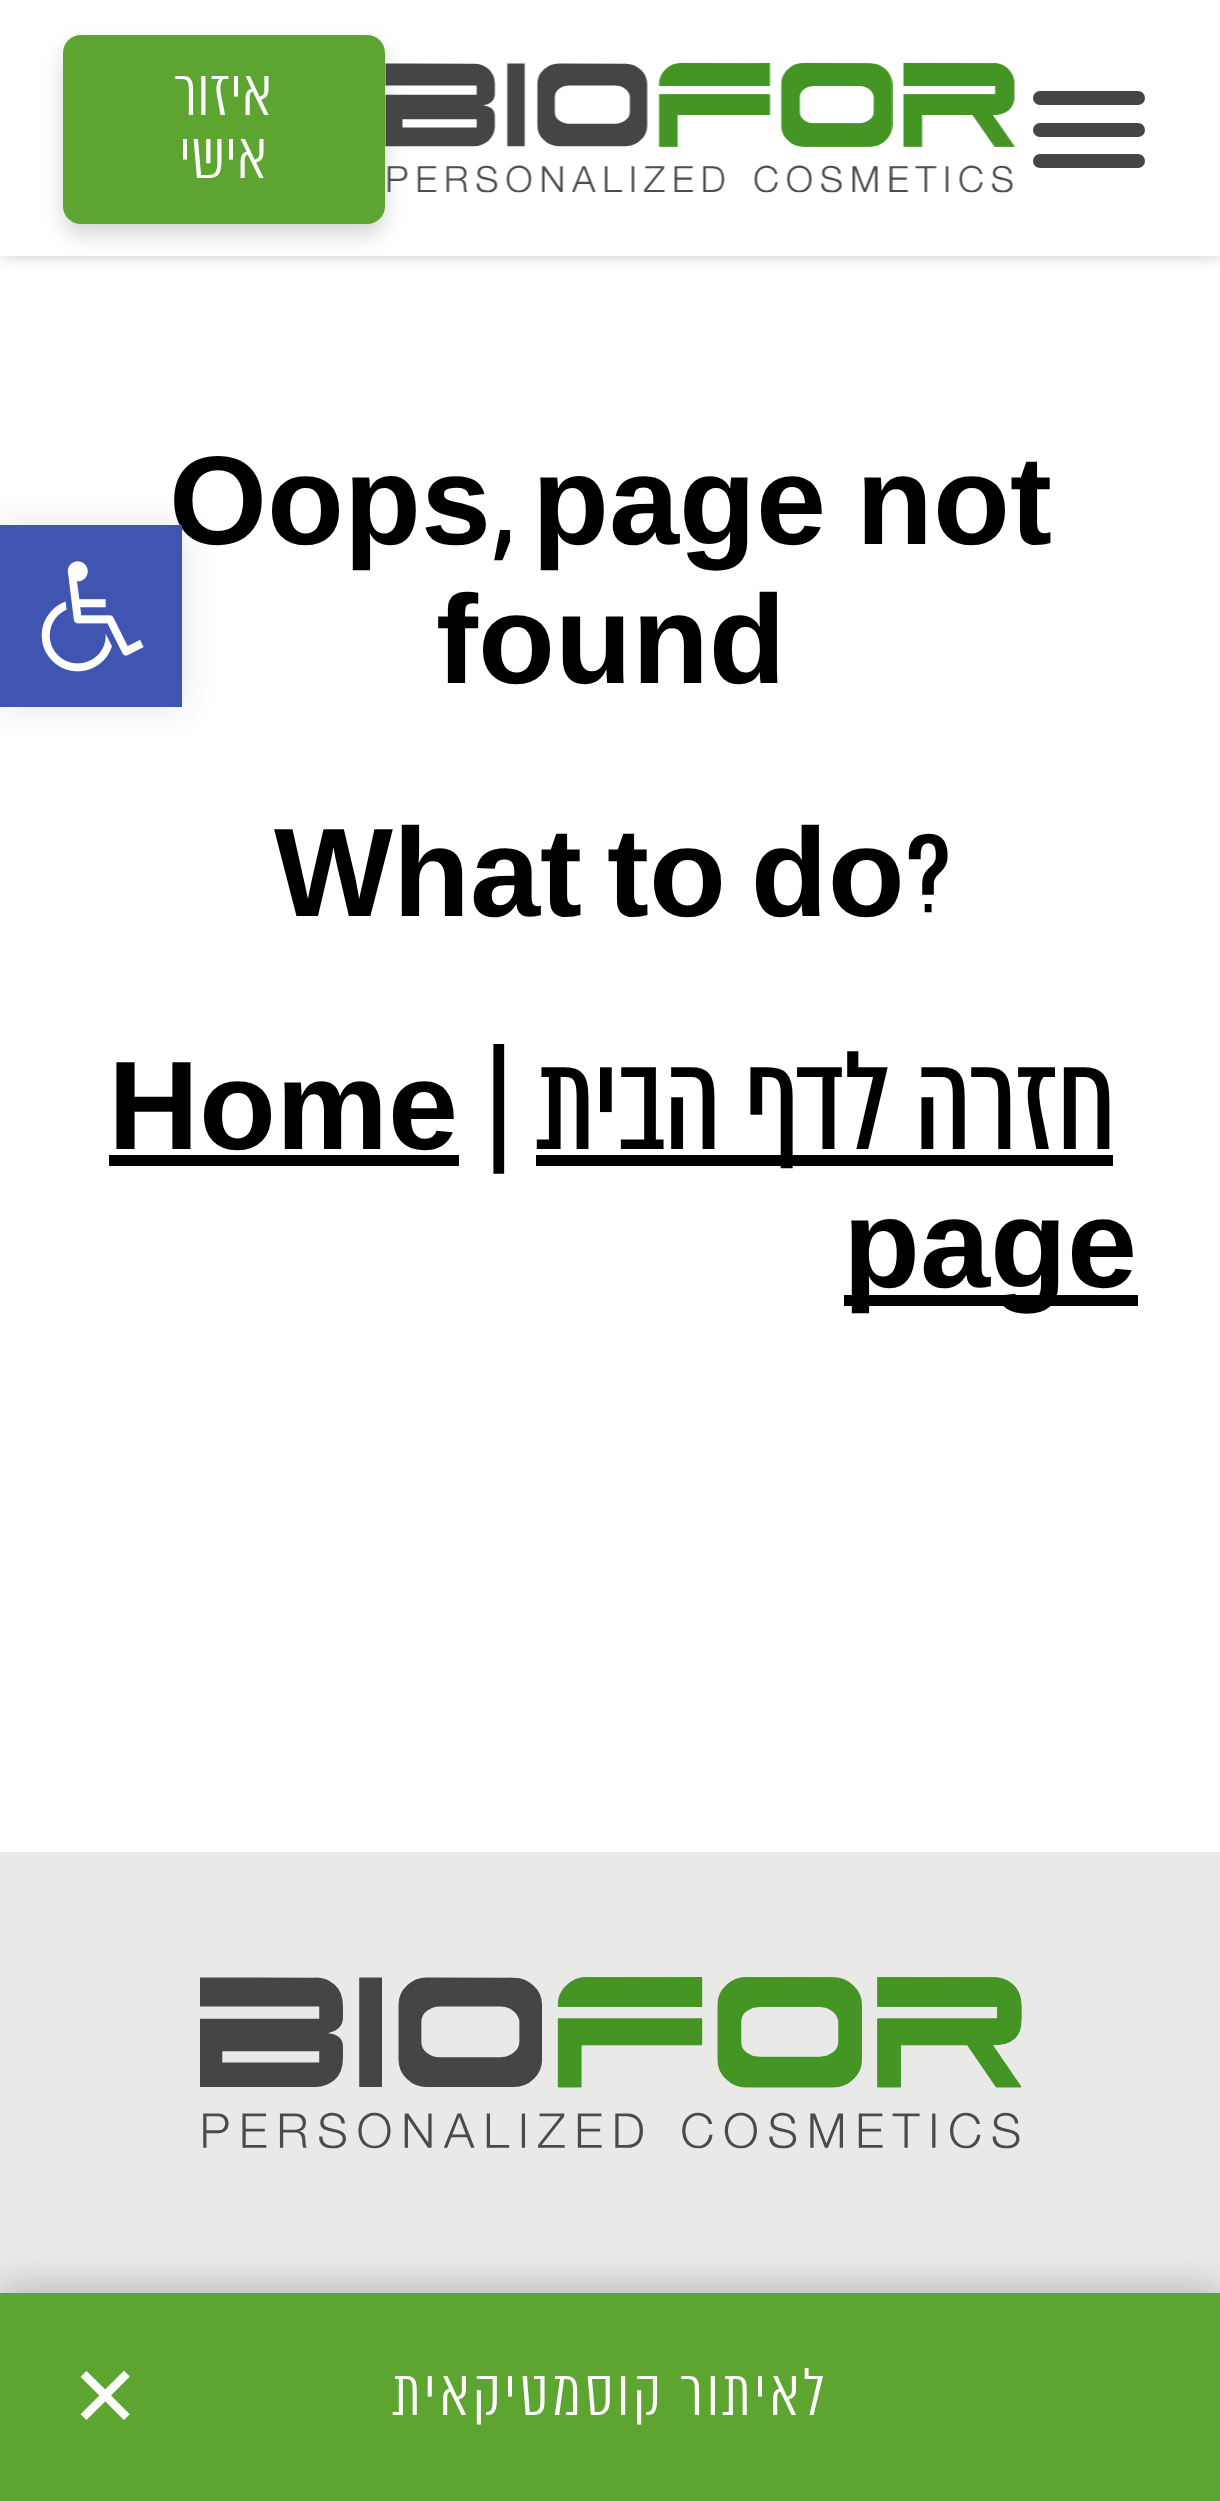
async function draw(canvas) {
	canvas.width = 1220;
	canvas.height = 2501;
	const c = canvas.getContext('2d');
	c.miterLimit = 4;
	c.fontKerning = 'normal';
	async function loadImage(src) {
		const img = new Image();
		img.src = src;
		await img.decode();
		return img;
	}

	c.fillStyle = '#fff';
	c.fillRect(0, 0, 1220, 2501);
	c.fillStyle = '#00000033';
	c.filter = 'blur(8px)';
	c.beginPath();
	c.rect(0, 0, 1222, 256);
	c.fill();
	c.filter = 'none';
	c.fillStyle = '#fff';
	c.fillRect(0, 0, 1220, 256);
	c.fillStyle = '#00000029';
	c.filter = 'blur(10.5px)';
	c.beginPath();
	c.roundRect(63, 46, 322, 189, 18);
	c.fill();
	c.filter = 'none';
	c.fillStyle = '#5da530';
	c.beginPath();
	c.roundRect(63, 35, 322, 189, 18);
	c.fill();
	c.direction = 'rtl';
	c.font = '300 63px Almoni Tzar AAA';
	c.fillStyle = '#fff';
	c.fillText('איזור', 272, 115);
	c.fillText('אישי', 267, 178);
	c.drawImage(await loadImage('img1.png'), 385, 63, 631, 130);
	c.fillStyle = '#464545';
	c.beginPath();
	c.roundRect(1033, 91, 112, 14, 7);
	c.fill();
	c.beginPath();
	c.roundRect(1033, 123, 112, 14, 7);
	c.fill();
	c.beginPath();
	c.roundRect(1033, 154, 112, 14, 7);
	c.fill();
	c.direction = 'ltr';
	c.font = 'bold 126px Liberation Sans';
	c.fillStyle = '#000';
	c.fillText('Oops', 169, 544);
	c.font = 'bold 126px Almoni Tzar AAA';
	c.fillText(',', 491, 544);
	c.wordSpacing = '-5px';
	c.font = 'bold 126px Liberation Sans';
	c.fillText('page not', 532, 544);
	c.wordSpacing = '0px';
	c.fillText('found', 436, 683);
	c.wordSpacing = '-10px';
	c.fillText('What to do', 274, 916);
	c.wordSpacing = '0px';
	c.font = 'bold 126px Almoni Tzar AAA';
	c.fillText('?', 904, 916);
	c.font = 'bold 126px Liberation Sans';
	c.fillText('Home', 108, 1149);
	c.fillRect(109, 1155, 350, 11);
	c.font = 'bold 126px Almoni Tzar AAA';
	c.fillText('|', 482, 1149);
	c.fillRect(536, 1155, 577, 11);
	c.direction = 'rtl';
	c.fillText('חזרה לדף הבית', 1114, 1149);
	c.fillRect(844, 1295, 294, 11);
	c.direction = 'ltr';
	c.font = 'bold 126px Liberation Sans';
	c.fillText('page', 843, 1287);
	c.fillStyle = '#0000001a';
	c.filter = 'blur(17.5px)';
	c.beginPath();
	c.rect(0, 525, 182, 182);
	c.fill();
	c.filter = 'none';
	c.fillStyle = '#4054b2';
	c.fillRect(0, 525, 182, 182);
	c.drawImage(await loadImage('img2.png'), 41, 561, 103, 111);
	c.fillStyle = '#e9eae8';
	c.fillRect(0, 1852, 1220, 441);
	c.drawImage(await loadImage('img3.png'), 200, 1977, 822, 172);
	c.fillStyle = '#00000033';
	c.filter = 'blur(17.5px)';
	c.beginPath();
	c.rect(0, 2286, 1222, 210);
	c.fill();
	c.filter = 'none';
	c.fillStyle = '#5da530';
	c.fillRect(0, 2293, 1220, 208);
	c.font = '84px DejaVu Sans';
	c.fillStyle = '#fff';
	c.fillText('✕', 70, 2426);
	c.letterSpacing = '3.5px';
	c.direction = 'rtl';
	c.font = '300 63px Almoni Tzar AAA';
	c.fillText('לאיתור קוסמטיקאית', 829, 2415);
}

draw(document.querySelector('canvas'));
